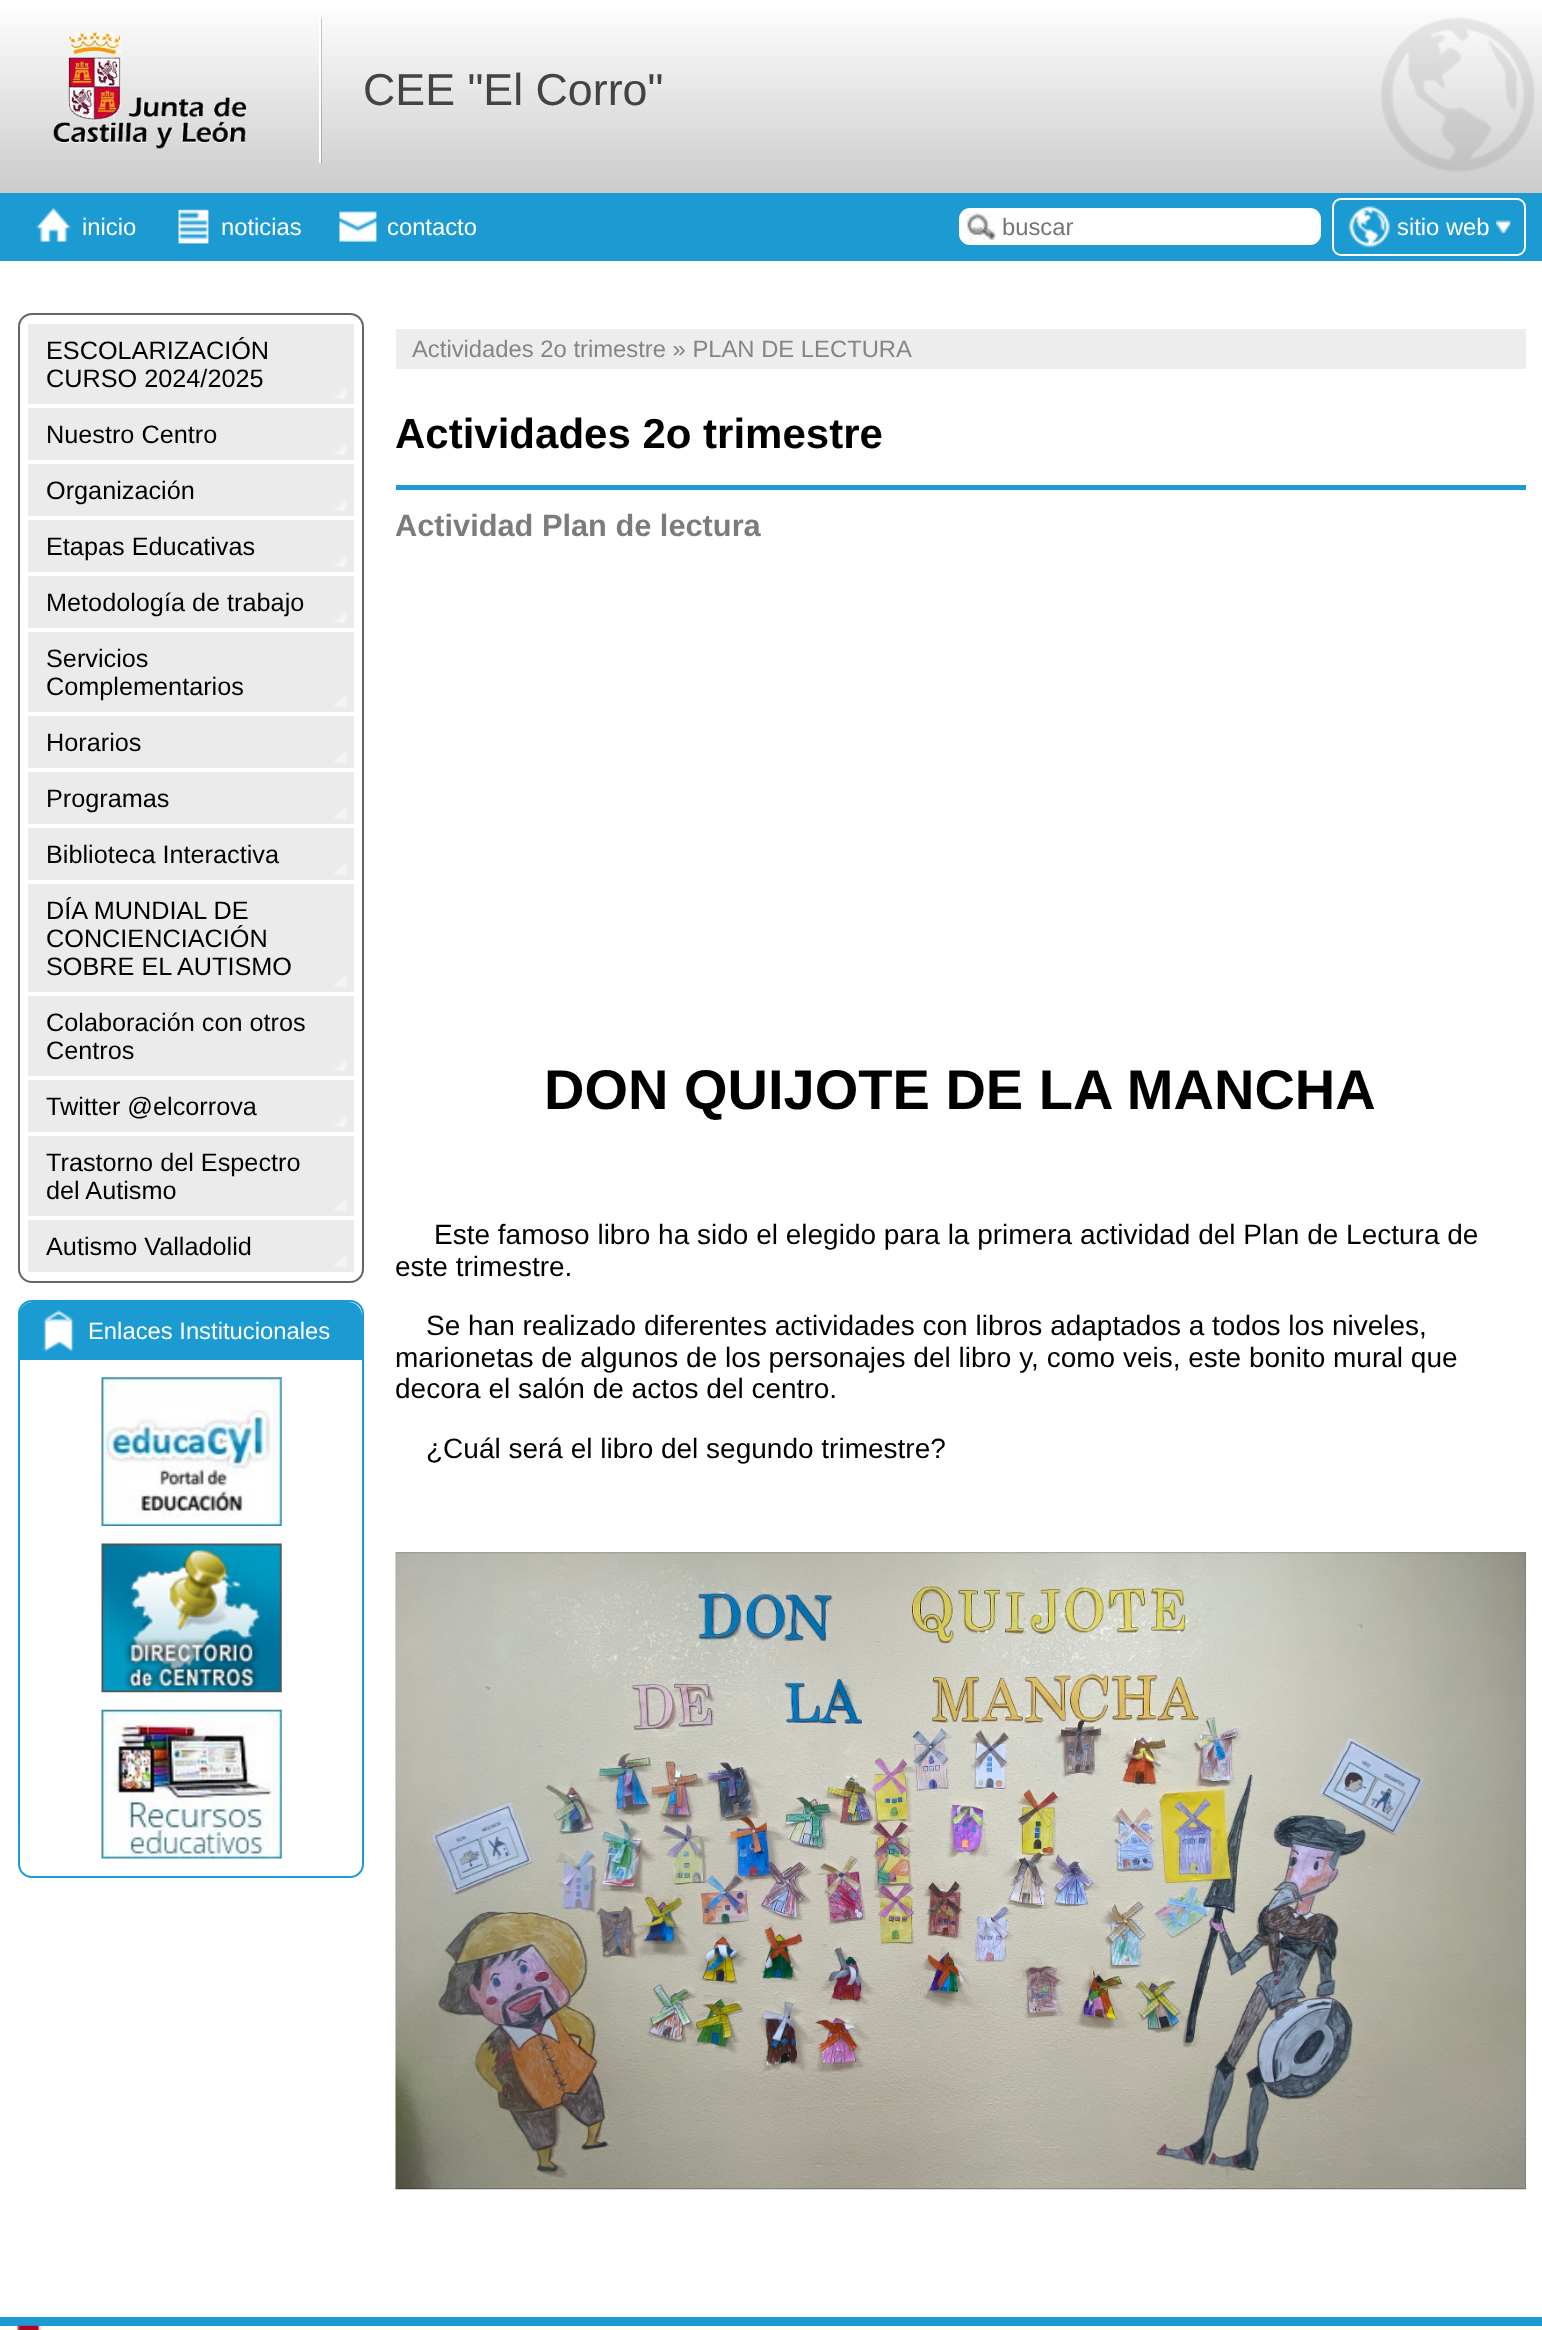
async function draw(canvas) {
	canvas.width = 1542;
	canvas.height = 2330;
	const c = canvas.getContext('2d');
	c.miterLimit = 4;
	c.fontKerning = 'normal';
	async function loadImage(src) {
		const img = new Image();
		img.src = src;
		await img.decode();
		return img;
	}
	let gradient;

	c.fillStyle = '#fff';
	c.fillRect(0, 0, 1542, 2330);
	gradient = c.createLinearGradient(772, 0, 772, 193);
	gradient.addColorStop(0, '#fff');
	gradient.addColorStop(1, '#cbcbcb');
	c.fillStyle = gradient;
	c.fillRect(0, 9, 1542, 184);
	c.drawImage(await loadImage('img1.png'), 1381, 17, 154, 155);
	c.fillStyle = '#00000033';
	c.beginPath();
	c.moveTo(32, 163);
	c.lineTo(322, 163);
	c.lineTo(322, 18);
	c.lineTo(320, 18);
	c.lineTo(320, 163);
	c.closePath();
	c.fill();
	c.fillStyle = '#fff';
	c.fillRect(319, 18, 2, 145);
	c.drawImage(await loadImage('img2.png'), 53, 32, 193, 117);
	c.font = '44.75px Liberation Sans';
	c.fillStyle = '#434343';
	c.fillText('CEE "El Corro"', 363, 105);
	c.fillStyle = '#1c9bd3';
	c.fillRect(0, 193, 1542, 68);
	c.drawImage(await loadImage('img3.png'), 36, 207, 35, 35);
	c.font = '23.8px Liberation Sans';
	c.fillStyle = '#fff';
	c.fillText('inicio', 82, 235);
	c.drawImage(await loadImage('img4.png'), 178, 209, 31, 35);
	c.fillText('noticias', 221, 235);
	c.drawImage(await loadImage('img5.png'), 339, 211, 38, 31);
	c.fillText('contacto', 387, 235);
	c.beginPath();
	c.roundRect(959, 208, 362, 37, 11);
	c.fill();
	c.drawImage(await loadImage('img6.png'), 966, 213, 30, 27);
	c.fillStyle = '#757575';
	c.fillText('buscar', 1002, 235);
	c.beginPath();
	c.roundRect(1333, 199, 192, 56, 8);
	c.strokeStyle = '#fff';
	c.lineWidth = 2;
	c.stroke();
	c.drawImage(await loadImage('img7.png'), 1348, 206, 42, 42);
	c.fillStyle = '#fff';
	c.fillText('sitio web', 1397, 235);
	c.drawImage(await loadImage('img8.png'), 1496, 220, 15, 14);
	c.beginPath();
	c.roundRect(19, 314, 344, 968, 13);
	c.strokeStyle = '#666';
	c.stroke();
	c.fillStyle = '#ebebeb';
	c.fillRect(28, 324, 326, 80);
	c.drawImage(await loadImage('img9.png'), 334, 387, 13, 12);
	c.font = '25.25px Liberation Sans';
	c.fillStyle = '#000';
	c.fillText('ESCOLARIZACIÓN', 46, 359);
	c.fillText('CURSO 2024/2025', 46, 387);
	c.fillStyle = '#ebebeb';
	c.fillRect(28, 408, 326, 52);
	c.drawImage(await loadImage('img9.png'), 334, 443, 13, 12);
	c.fillStyle = '#000';
	c.fillText('Nuestro Centro', 46, 443);
	c.fillStyle = '#ebebeb';
	c.fillRect(28, 464, 326, 52);
	c.drawImage(await loadImage('img9.png'), 334, 499, 13, 12);
	c.fillStyle = '#000';
	c.fillText('Organización', 46, 499);
	c.fillStyle = '#ebebeb';
	c.fillRect(28, 520, 326, 52);
	c.drawImage(await loadImage('img9.png'), 334, 555, 13, 12);
	c.fillStyle = '#000';
	c.fillText('Etapas Educativas', 46, 555);
	c.fillStyle = '#ebebeb';
	c.fillRect(28, 576, 326, 52);
	c.drawImage(await loadImage('img9.png'), 334, 611, 13, 12);
	c.fillStyle = '#000';
	c.fillText('Metodología de trabajo', 46, 611);
	c.fillStyle = '#ebebeb';
	c.fillRect(28, 632, 326, 80);
	c.drawImage(await loadImage('img9.png'), 334, 695, 13, 12);
	c.fillStyle = '#000';
	c.fillText('Servicios', 46, 667);
	c.fillText('Complementarios', 46, 695);
	c.fillStyle = '#ebebeb';
	c.fillRect(28, 716, 326, 52);
	c.drawImage(await loadImage('img9.png'), 334, 751, 13, 12);
	c.fillStyle = '#000';
	c.fillText('Horarios', 46, 751);
	c.fillStyle = '#ebebeb';
	c.fillRect(28, 772, 326, 52);
	c.drawImage(await loadImage('img9.png'), 334, 807, 13, 12);
	c.fillStyle = '#000';
	c.fillText('Programas', 46, 807);
	c.fillStyle = '#ebebeb';
	c.fillRect(28, 828, 326, 52);
	c.drawImage(await loadImage('img9.png'), 334, 863, 13, 12);
	c.fillStyle = '#000';
	c.fillText('Biblioteca Interactiva', 46, 863);
	c.fillStyle = '#ebebeb';
	c.fillRect(28, 884, 326, 108);
	c.drawImage(await loadImage('img9.png'), 334, 975, 13, 12);
	c.fillStyle = '#000';
	for (const [text, x, y] of [
		['DÍA MUNDIAL DE', 46, 919],
		['CONCIENCIACIÓN', 46, 947],
		['SOBRE EL AUTISMO', 46, 975],
	]) {
		c.fillText(text, x, y);
	}
	c.fillStyle = '#ebebeb';
	c.fillRect(28, 996, 326, 80);
	c.drawImage(await loadImage('img9.png'), 334, 1059, 13, 12);
	c.fillStyle = '#000';
	c.fillText('Colaboración con otros', 46, 1031);
	c.fillText('Centros', 46, 1059);
	c.fillStyle = '#ebebeb';
	c.fillRect(28, 1080, 326, 52);
	c.drawImage(await loadImage('img9.png'), 334, 1115, 13, 12);
	c.fillStyle = '#000';
	c.fillText('Twitter @elcorrova', 46, 1115);
	c.fillStyle = '#ebebeb';
	c.fillRect(28, 1136, 326, 80);
	c.drawImage(await loadImage('img9.png'), 334, 1199, 13, 12);
	c.fillStyle = '#000';
	c.fillText('Trastorno del Espectro', 46, 1171);
	c.fillText('del Autismo', 46, 1199);
	c.fillStyle = '#ebebeb';
	c.fillRect(28, 1220, 326, 52);
	c.drawImage(await loadImage('img9.png'), 334, 1255, 13, 12);
	c.fillStyle = '#000';
	c.fillText('Autismo Valladolid', 46, 1255);
	c.beginPath();
	c.roundRect(19, 1301, 344, 576, 13);
	c.strokeStyle = '#1c9bd3';
	c.stroke();
	c.save();
	c.beginPath();
	c.roundRect(19, 1302, 343, 574, 12);
	c.clip();
	c.fillStyle = '#1c9bd3';
	c.beginPath();
	c.roundRect(19, 1302, 343, 58, [14, 14, 0, 0]);
	c.fill();
	c.restore();
	c.drawImage(await loadImage('img10.png'), 43, 1310, 31, 42);
	c.font = '23.8px Liberation Sans';
	c.fillStyle = '#fff';
	c.fillText('Enlaces Institucionales', 88, 1339);
	c.drawImage(await loadImage('img11.png'), 101, 1377, 181, 149);
	c.drawImage(await loadImage('img12.png'), 101, 1543, 181, 150);
	c.drawImage(await loadImage('img13.png'), 101, 1709, 181, 150);
	c.fillStyle = '#ededed';
	c.fillRect(396, 329, 1130, 40);
	c.fillStyle = '#858585';
	c.fillText('Actividades 2o trimestre » PLAN DE LECTURA', 412, 357);
	c.fillStyle = '#1c9bd3';
	c.fillRect(396, 485, 1130, 5);
	c.font = 'bold 42px Liberation Sans';
	c.fillStyle = '#000';
	c.fillText('Actividades 2o trimestre', 395, 448);
	c.font = 'bold 30.75px Liberation Sans';
	c.fillStyle = '#7c7c7c';
	c.fillText('Actividad Plan de lectura', 395, 536);
	c.font = 'bold 56px Liberation Sans';
	c.fillStyle = '#000';
	c.fillText('DON QUIJOTE DE LA MANCHA', 544, 1109);
	c.font = '28px Liberation Sans';
	for (const [text, x, y] of [
		['Este famoso libro ha sido el elegido para la primera actividad del Plan de Lectura de', 434, 1244],
		['este trimestre.', 395, 1276],
		['Se han realizado diferentes actividades con libros adaptados a todos los niveles,', 426, 1335],
		['marionetas de algunos de los personajes del libro y, como veis, este bonito mural que', 395, 1367],
		['decora el salón de actos del centro.', 395, 1398],
		['¿Cuál será el libro del segundo trimestre?', 426, 1458],
	]) {
		c.fillText(text, x, y);
	}
	c.drawImage(await loadImage('img14.png'), 395, 1552, 1131, 638);
	c.fillStyle = '#1c9bd3';
	c.fillRect(0, 2317, 1542, 9);
	c.drawImage(await loadImage('img15.png'), 17, 2325, 24, 5);
}

draw(document.querySelector('canvas'));
